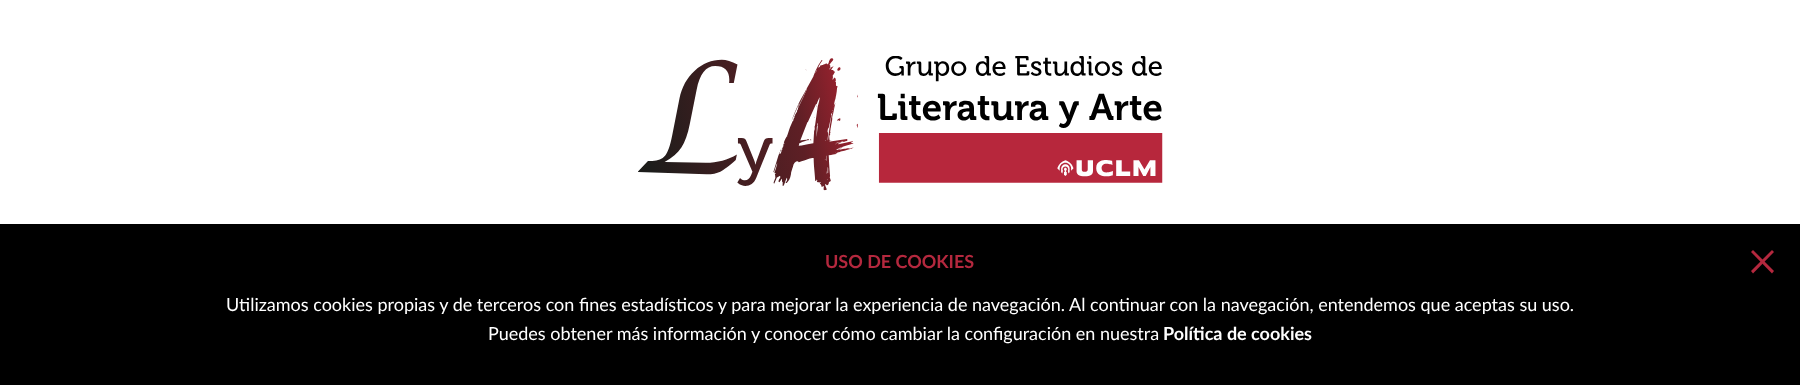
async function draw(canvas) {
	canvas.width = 1800;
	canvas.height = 385;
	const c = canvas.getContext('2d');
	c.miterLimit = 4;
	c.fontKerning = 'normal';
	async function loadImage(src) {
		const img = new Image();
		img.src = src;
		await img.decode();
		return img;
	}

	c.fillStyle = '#fff';
	c.fillRect(0, 0, 1800, 385);
	c.drawImage(await loadImage('img1.png'), 638, 56, 525, 135);
	c.fillStyle = '#000';
	c.fillRect(0, 224, 1800, 161);
	c.font = 'bold 18px Lato';
	c.fillStyle = '#b4283e';
	c.fillText('USO DE COOKIES', 825, 268);
	c.font = '18px Lato';
	c.fillStyle = '#fff';
	c.fillText('Utilizamos cookies propias y de terceros con fines estadísticos y para mejorar la experiencia de navegación. Al continuar con la navegación, entendemos que aceptas su uso.', 226, 311);
	c.fillText('Puedes obtener más información y conocer cómo cambiar la configuración en nuestra', 488, 340);
	c.font = 'bold 18px Lato';
	c.fillText('Política de cookies', 1163, 340);
	c.fillStyle = '#b4283e';
	c.beginPath();
	c.moveTo(1772, 250);
	c.lineTo(1774, 252);
	c.lineTo(1753, 273.5);
	c.lineTo(1751, 271);
	c.closePath();
	c.fill();
	c.beginPath();
	c.moveTo(1751, 252);
	c.lineTo(1753, 250);
	c.lineTo(1774, 271);
	c.lineTo(1772, 273.5);
	c.closePath();
	c.fill();
}

draw(document.querySelector('canvas'));
